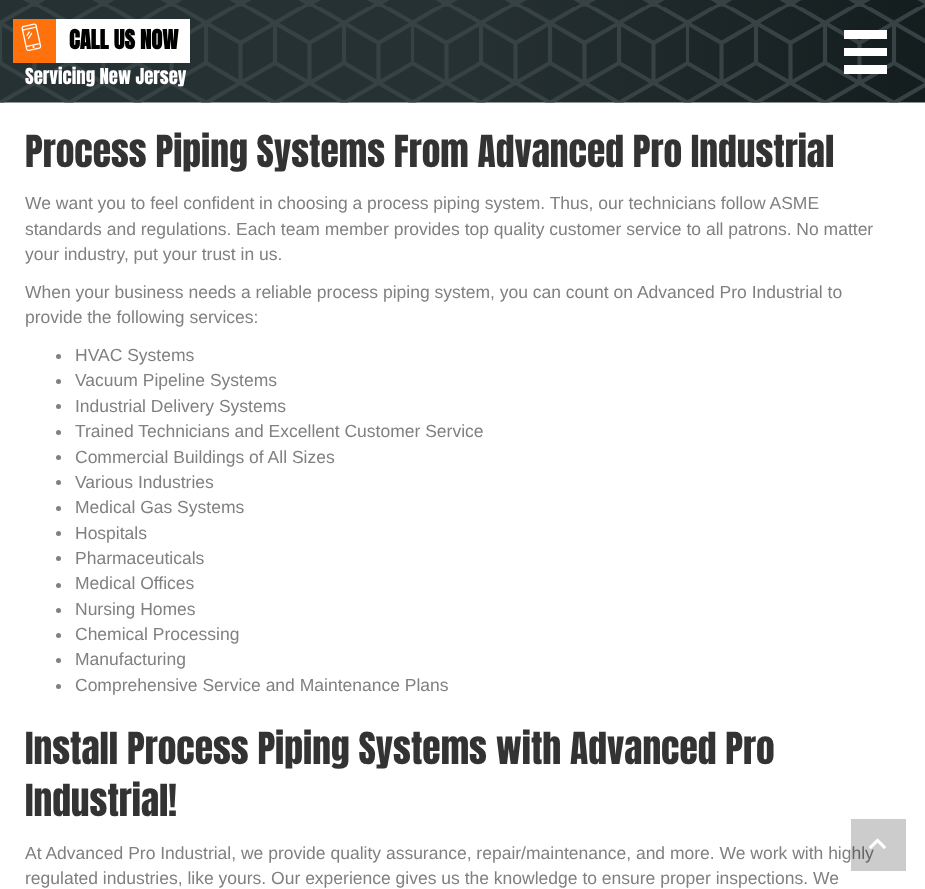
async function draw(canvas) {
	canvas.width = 925;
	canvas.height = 889;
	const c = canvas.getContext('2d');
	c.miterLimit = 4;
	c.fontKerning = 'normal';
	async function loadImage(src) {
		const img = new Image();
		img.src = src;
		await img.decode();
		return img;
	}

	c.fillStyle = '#fff';
	c.fillRect(0, 0, 925, 889);
	c.drawImage(await loadImage('img1.png'), 0, 0, 925, 103);
	c.fillRect(56, 19, 134, 44);
	c.fillStyle = '#ff710c';
	c.fillRect(13, 19, 43, 44);
	c.drawImage(await loadImage('img2.png'), 21, 23, 21, 29);
	c.font = 'bold 22.5px Anton';
	c.fillStyle = '#000';
	c.fillText('CALL US NOW', 69, 49);
	c.font = '18.75px Anton';
	c.fillStyle = '#fff';
	c.fillText('Servicing New Jersey', 25, 84);
	for (const [x, y, w, h, color] of [
		[844, 30, 43, 9, '#fff'],
		[844, 48, 43, 8, '#fff'],
		[844, 65, 43, 9, '#fff'],
	]) {
		c.fillStyle = color;
		c.fillRect(x, y, w, h);
	}
	c.font = '37.5px Anton';
	c.fillStyle = '#333';
	c.fillText('Process Piping Systems From Advanced Pro Industrial', 25, 167);
	c.font = '17.5px Liberation Sans';
	c.fillStyle = '#808080';
	for (const [text, x, y] of [
		['We want you to feel confident in choosing a process piping system. Thus, our technicians follow ASME', 25, 209],
		['standards and regulations. Each team member provides top quality customer service to all patrons. No matter', 25, 235],
		['your industry, put your trust in us.', 25, 260],
		['When your business needs a reliable process piping system, you can count on Advanced Pro Industrial to', 25, 298],
		['provide the following services:', 25, 323],
	]) {
		c.fillText(text, x, y);
	}
	c.beginPath();
	c.arc(58.5, 356.5, 2.5, 0, 2 * Math.PI);
	c.fill();
	c.fillText('HVAC Systems', 75, 361);
	c.beginPath();
	c.arc(58.5, 381.5, 2.5, 0, 2 * Math.PI);
	c.fill();
	c.fillText('Vacuum Pipeline Systems', 75, 386);
	c.beginPath();
	c.arc(58.5, 406.5, 2.5, 0, 2 * Math.PI);
	c.fill();
	c.fillText('Industrial Delivery Systems', 75, 412);
	c.beginPath();
	c.arc(58.5, 432.5, 2.5, 0, 2 * Math.PI);
	c.fill();
	c.fillText('Trained Technicians and Excellent Customer Service', 75, 437);
	c.beginPath();
	c.arc(58.5, 457.5, 2.5, 0, 2 * Math.PI);
	c.fill();
	c.fillText('Commercial Buildings of All Sizes', 75, 463);
	c.beginPath();
	c.arc(58.5, 482.5, 2.5, 0, 2 * Math.PI);
	c.fill();
	c.fillText('Various Industries', 75, 488);
	c.beginPath();
	c.arc(58.5, 508.5, 2.5, 0, 2 * Math.PI);
	c.fill();
	c.fillText('Medical Gas Systems', 75, 513);
	c.beginPath();
	c.arc(58.5, 533.5, 2.5, 0, 2 * Math.PI);
	c.fill();
	c.fillText('Hospitals', 75, 539);
	c.beginPath();
	c.arc(58.5, 558.5, 2.5, 0, 2 * Math.PI);
	c.fill();
	c.fillText('Pharmaceuticals', 75, 564);
	c.beginPath();
	c.arc(58.5, 585.5, 2.5, 0, 2 * Math.PI);
	c.fill();
	c.fillText('Medical Offices', 75, 589);
	c.beginPath();
	c.arc(58.5, 610.5, 2.5, 0, 2 * Math.PI);
	c.fill();
	c.fillText('Nursing Homes', 75, 615);
	c.beginPath();
	c.arc(58.5, 635.5, 2.5, 0, 2 * Math.PI);
	c.fill();
	c.fillText('Chemical Processing', 75, 640);
	c.beginPath();
	c.arc(58.5, 660.5, 2.5, 0, 2 * Math.PI);
	c.fill();
	c.fillText('Manufacturing', 75, 665);
	c.beginPath();
	c.arc(58.5, 686.5, 2.5, 0, 2 * Math.PI);
	c.fill();
	c.fillText('Comprehensive Service and Maintenance Plans', 75, 691);
	c.font = '37.5px Anton';
	c.fillStyle = '#333';
	c.fillText('Install Process Piping Systems with Advanced Pro', 25, 764);
	c.fillText('Industrial!', 25, 816);
	c.font = '17.5px Liberation Sans';
	c.fillStyle = '#808080';
	c.fillText('At Advanced Pro Industrial, we provide quality assurance, repair/maintenance, and more. We work with highly', 25, 859);
	c.fillText('regulated industries, like yours. Our experience gives us the knowledge to ensure proper inspections. We', 25, 884);
	c.fillStyle = '#00000033';
	c.fillRect(851, 819, 55, 52);
	c.drawImage(await loadImage('img3.png'), 869, 838, 17, 11);
}

draw(document.querySelector('canvas'));
